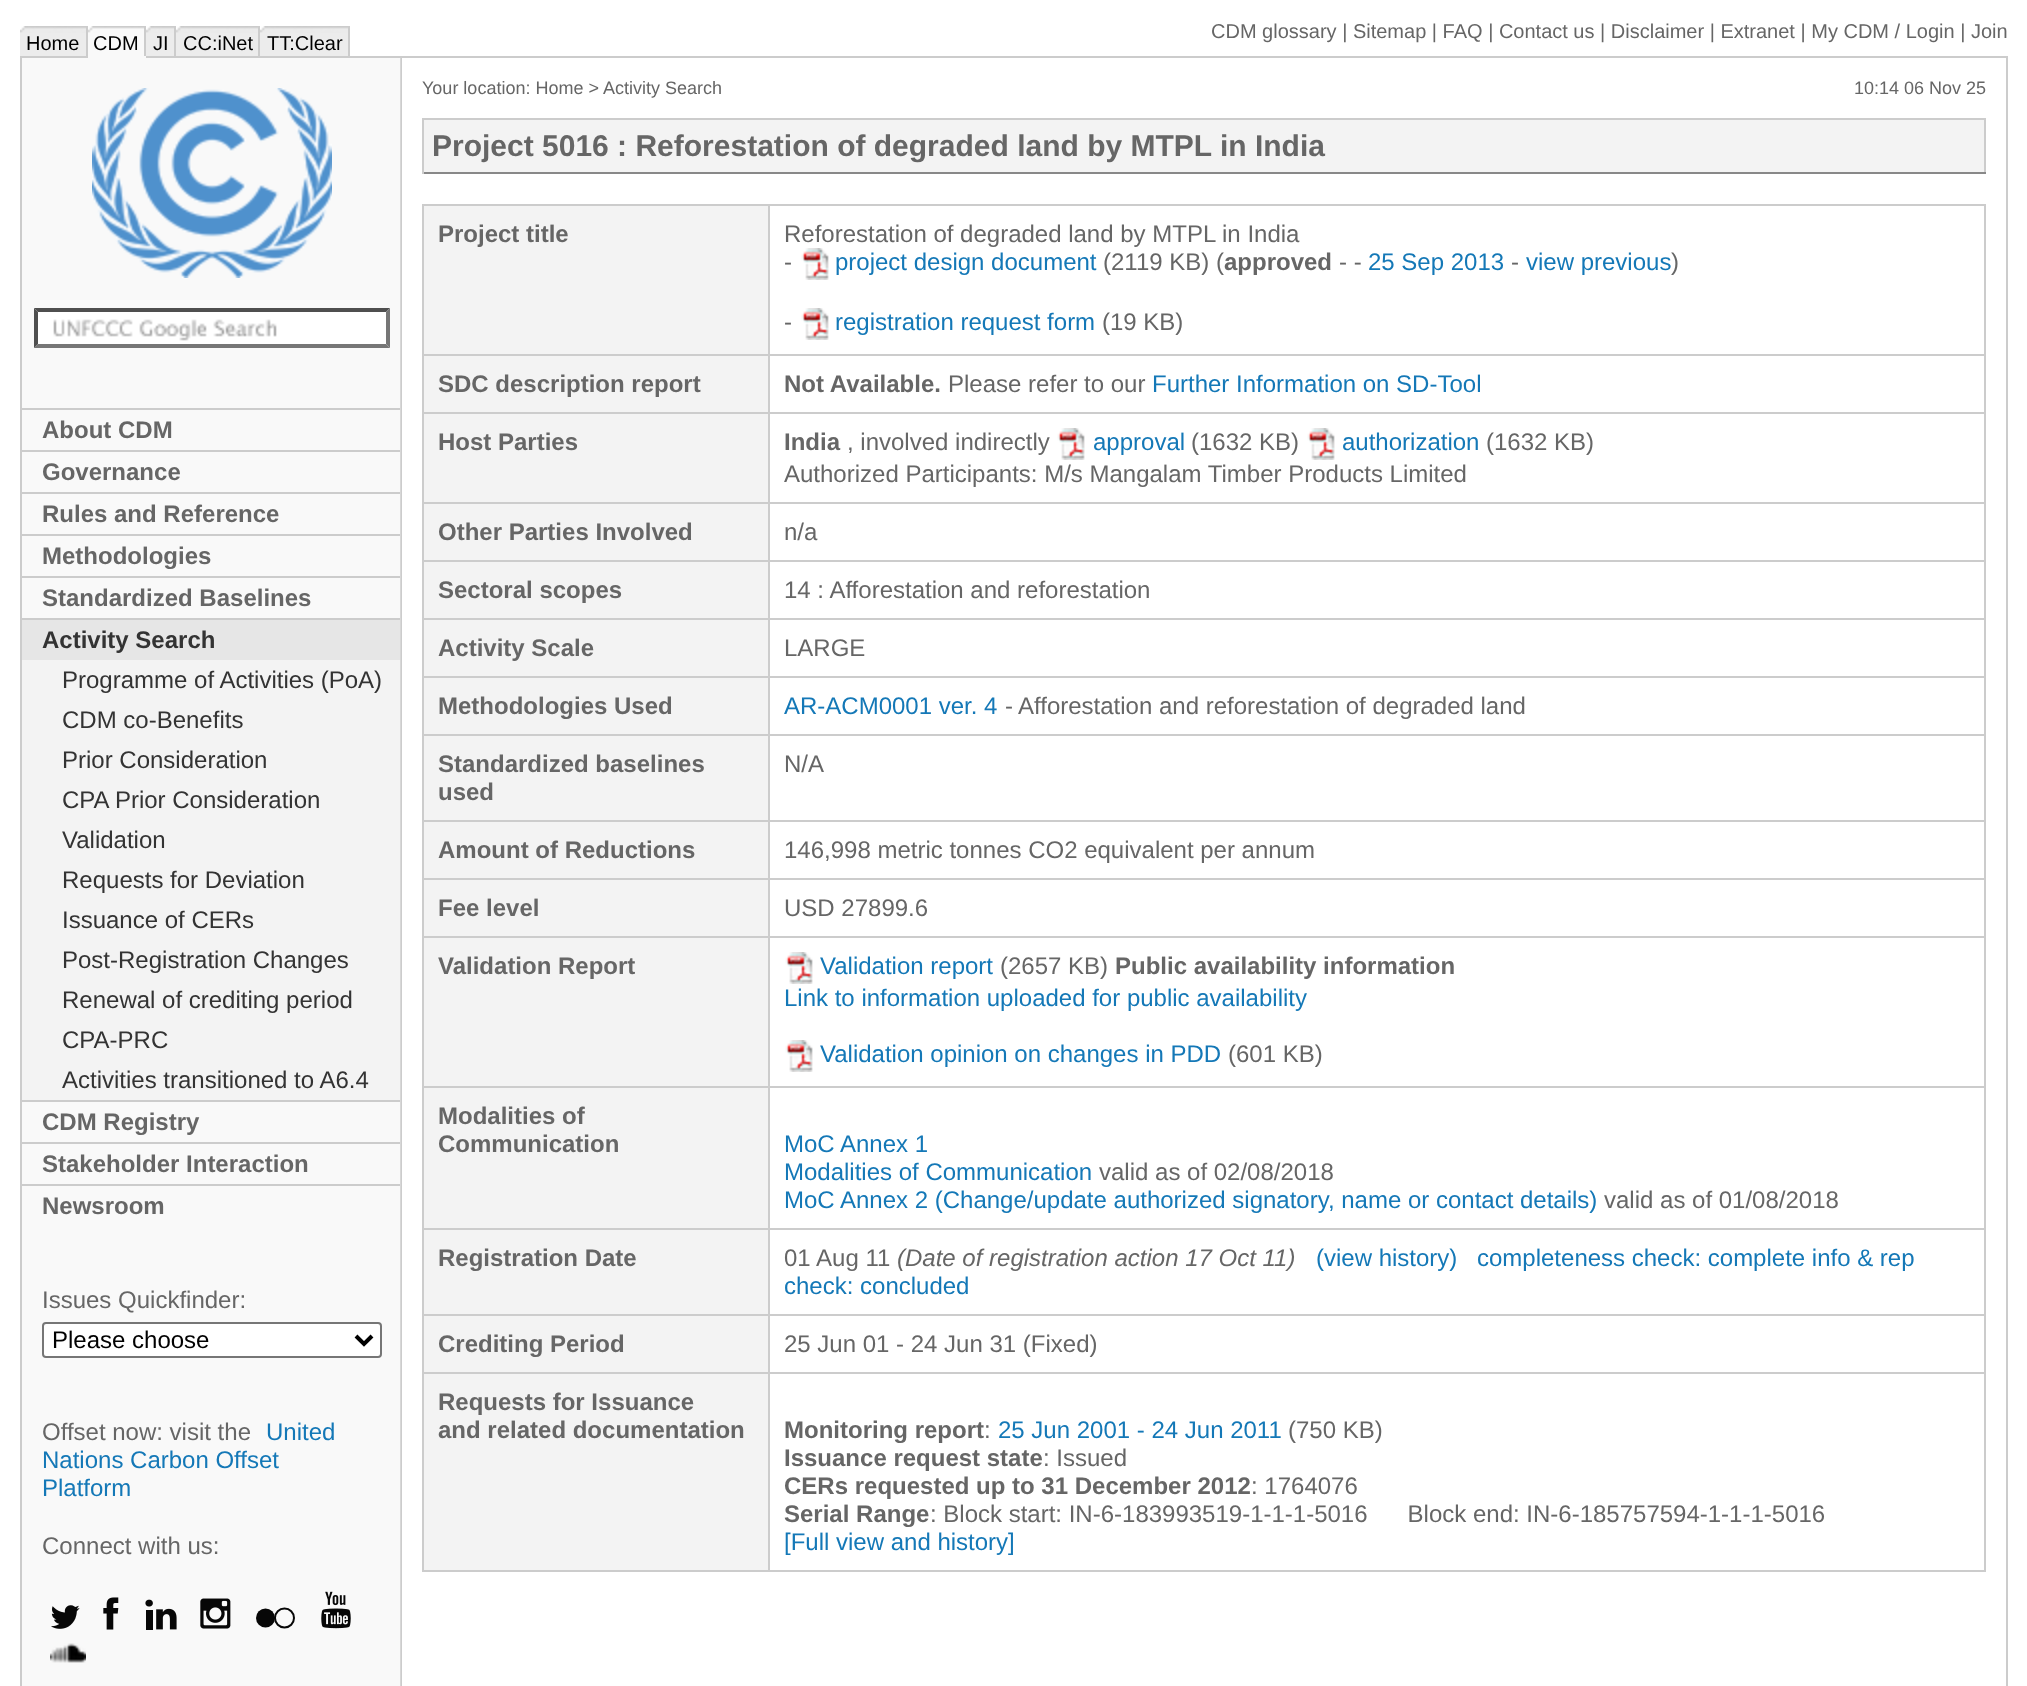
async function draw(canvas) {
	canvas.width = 2027;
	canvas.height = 1686;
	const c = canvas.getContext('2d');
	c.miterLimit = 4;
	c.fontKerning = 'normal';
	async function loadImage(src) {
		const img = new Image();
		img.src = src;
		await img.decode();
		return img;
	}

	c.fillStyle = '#fff';
	c.fillRect(0, 0, 2027, 1686);
	c.fillStyle = '#ececec';
	c.fillRect(20, 33, 66, 23);
	c.drawImage(await loadImage('img1.png'), 20, 26, 66, 7);
	c.drawImage(await loadImage('img6.png'), 400, 58, 2, 1628);
	c.strokeStyle = '#ccc';
	c.lineWidth = 2;
	c.strokeRect(21, 57, 1986, 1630);
	c.fillStyle = '#ccc';
	c.fillRect(86, 26, 2, 32);
	c.font = '20px Liberation Sans';
	c.fillStyle = '#000';
	c.fillText('Home', 26, 50);
	c.fillStyle = '#f9f9f9';
	c.fillRect(88, 33, 56, 23);
	c.drawImage(await loadImage('img2.png'), 88, 26, 56, 7);
	c.fillStyle = '#ccc';
	c.fillRect(144, 26, 2, 32);
	c.fillStyle = '#f9f9f9';
	c.fillRect(88, 56, 58, 2);
	c.fillStyle = '#000';
	c.fillText('CDM', 93, 50);
	c.fillStyle = '#ececec';
	c.fillRect(146, 33, 28, 23);
	c.drawImage(await loadImage('img3.png'), 146, 26, 28, 7);
	c.fillStyle = '#ccc';
	c.fillRect(174, 26, 2, 32);
	c.fillStyle = '#000';
	c.fillText('JI', 153, 50);
	c.fillStyle = '#ececec';
	c.fillRect(176, 33, 82, 23);
	c.drawImage(await loadImage('img4.png'), 176, 26, 82, 7);
	c.fillStyle = '#ccc';
	c.fillRect(258, 26, 2, 32);
	c.fillStyle = '#000';
	c.fillText('CC:iNet', 183, 50);
	c.fillStyle = '#ececec';
	c.fillRect(260, 33, 88, 23);
	c.drawImage(await loadImage('img5.png'), 260, 26, 88, 7);
	c.fillStyle = '#ccc';
	c.fillRect(348, 26, 2, 32);
	c.fillStyle = '#000';
	c.fillText('TT:Clear', 267, 50);
	c.fillStyle = '#666';
	c.fillText('CDM glossary | Sitemap | FAQ | Contact us | Disclaimer | Extranet | My CDM / Login | Join', 1211, 38);
	c.fillStyle = '#f9f9f9';
	c.fillRect(22, 58, 378, 1628);
	c.drawImage(await loadImage('img7.png'), 92, 88, 240, 190);
	c.fillStyle = '#fff';
	c.fillRect(34, 308, 356, 40);
	c.drawImage(await loadImage('img8.png'), 53, 319, 224, 22);
	c.fillStyle = '#4f4f4f';
	c.beginPath();
	c.moveTo(34, 308);
	c.lineTo(390, 308);
	c.lineTo(386, 312);
	c.lineTo(38, 312);
	c.closePath();
	c.fill();
	c.fillStyle = '#767676';
	c.beginPath();
	c.moveTo(390, 308);
	c.lineTo(390, 348);
	c.lineTo(386, 344);
	c.lineTo(386, 312);
	c.closePath();
	c.fill();
	c.beginPath();
	c.moveTo(390, 348);
	c.lineTo(34, 348);
	c.lineTo(38, 344);
	c.lineTo(386, 344);
	c.closePath();
	c.fill();
	c.fillStyle = '#4f4f4f';
	c.beginPath();
	c.moveTo(34, 348);
	c.lineTo(34, 308);
	c.lineTo(38, 312);
	c.lineTo(38, 344);
	c.closePath();
	c.fill();
	c.fillStyle = '#ccc';
	c.fillRect(22, 408, 378, 2);
	c.font = 'bold 24px Liberation Sans';
	c.fillStyle = '#666';
	c.fillText('About CDM', 42, 438);
	c.fillStyle = '#ccc';
	c.fillRect(22, 450, 378, 2);
	c.fillStyle = '#666';
	c.fillText('Governance', 42, 480);
	c.fillStyle = '#ccc';
	c.fillRect(22, 492, 378, 2);
	c.fillStyle = '#666';
	c.fillText('Rules and Reference', 42, 522);
	c.fillStyle = '#ccc';
	c.fillRect(22, 534, 378, 2);
	c.fillStyle = '#666';
	c.fillText('Methodologies', 42, 564);
	c.fillStyle = '#ccc';
	c.fillRect(22, 576, 378, 2);
	c.fillStyle = '#666';
	c.fillText('Standardized Baselines', 42, 606);
	c.fillStyle = '#e6e6e6';
	c.fillRect(22, 620, 378, 40);
	c.fillStyle = '#ccc';
	c.fillRect(22, 618, 378, 2);
	c.fillStyle = '#333';
	c.fillText('Activity Search', 42, 648);
	c.fillStyle = '#f3f3f3';
	c.fillRect(22, 660, 378, 440);
	c.font = '24px Liberation Sans';
	c.fillStyle = '#333';
	for (const [text, x, y] of [
		['Programme of Activities (PoA)', 62, 688],
		['CDM co-Benefits', 62, 728],
		['Prior Consideration', 62, 768],
		['CPA Prior Consideration', 62, 808],
		['Validation', 62, 848],
		['Requests for Deviation', 62, 888],
		['Issuance of CERs', 62, 928],
		['Post-Registration Changes', 62, 968],
		['Renewal of crediting period', 62, 1008],
		['CPA-PRC', 62, 1048],
		['Activities transitioned to A6.4', 62, 1088],
	]) {
		c.fillText(text, x, y);
	}
	c.fillStyle = '#ccc';
	c.fillRect(22, 1100, 378, 2);
	c.font = 'bold 24px Liberation Sans';
	c.fillStyle = '#666';
	c.fillText('CDM Registry', 42, 1130);
	c.fillStyle = '#ccc';
	c.fillRect(22, 1142, 378, 2);
	c.fillStyle = '#666';
	c.fillText('Stakeholder Interaction', 42, 1172);
	c.fillStyle = '#ccc';
	c.fillRect(22, 1184, 378, 2);
	c.fillStyle = '#666';
	c.fillText('Newsroom', 42, 1214);
	c.font = '24px Liberation Sans';
	c.fillText('Issues Quickfinder:', 42, 1308);
	c.fillStyle = '#fff';
	c.beginPath();
	c.roundRect(43, 1323, 338, 34, 3);
	c.fill();
	c.strokeStyle = '#767676';
	c.stroke();
	c.beginPath();
	c.moveTo(356, 1336);
	c.lineTo(364, 1344);
	c.lineTo(372, 1336);
	c.strokeStyle = '#000';
	c.lineWidth = 4;
	c.stroke();
	c.fillStyle = '#000';
	c.fillText('Please choose', 52, 1348);
	c.fillStyle = '#666';
	c.fillText('Offset now: visit the', 42, 1440);
	c.fillStyle = '#1478b7';
	for (const [text, x, y] of [
		['United', 266, 1440],
		['Nations Carbon Offset', 42, 1468],
		['Platform', 42, 1496],
	]) {
		c.fillText(text, x, y);
	}
	c.fillStyle = '#666';
	c.fillText('Connect with us:', 42, 1554);
	c.drawImage(await loadImage('img9.png'), 51, 1605, 29, 24);
	c.drawImage(await loadImage('img10.png'), 103, 1597, 16, 33);
	c.drawImage(await loadImage('img11.png'), 145, 1599, 32, 31);
	c.drawImage(await loadImage('img12.png'), 200, 1598, 31, 31);
	c.fillStyle = '#070707';
	c.beginPath();
	c.arc(265.5, 1618, 9.5, 0, 2 * Math.PI);
	c.fill();
	c.beginPath();
	c.arc(284.5, 1618, 9.5, 0, 2 * Math.PI);
	c.strokeStyle = '#070707';
	c.lineWidth = 2;
	c.stroke();
	c.drawImage(await loadImage('img13.png'), 321, 1591, 30, 38);
	c.drawImage(await loadImage('img14.png'), 50, 1643, 36, 20);
	c.font = '18px Liberation Sans';
	c.fillStyle = '#666';
	for (const [text, x, y] of [
		['Your location: Home >', 422, 94],
		['Activity Search', 603, 94],
		['10:14 06 Nov 25', 1854, 94],
	]) {
		c.fillText(text, x, y);
	}
	for (const [x, y, w, h, color] of [
		[424, 120, 1560, 52, '#f3f3f3'],
		[422, 118, 1564, 2, '#ccc'],
		[1984, 118, 2, 56, '#ccc'],
		[422, 172, 1564, 2, '#888'],
		[422, 118, 2, 56, '#ccc'],
	]) {
		c.fillStyle = color;
		c.fillRect(x, y, w, h);
	}
	c.font = 'bold 30px Liberation Sans';
	c.fillStyle = '#666';
	c.fillText('Project 5016 : Reforestation of degraded land by MTPL in India', 432, 156);
	for (const [x, y, w, h, color] of [
		[422, 204, 1562, 1366, '#ccc'],
		[1984, 204, 2, 1368, '#ccc'],
		[422, 1570, 1564, 2, '#ccc'],
		[424, 206, 344, 148, '#f3f3f3'],
	]) {
		c.fillStyle = color;
		c.fillRect(x, y, w, h);
	}
	c.font = 'bold 24px Liberation Sans';
	c.fillStyle = '#666';
	c.fillText('Project title', 438, 242);
	c.fillStyle = '#fff';
	c.fillRect(770, 206, 1214, 148);
	c.font = '24px Liberation Sans';
	c.fillStyle = '#666';
	c.fillText('Reforestation of degraded land by MTPL in India', 784, 242);
	c.fillText('-', 784, 270);
	c.drawImage(await loadImage('img15.png'), 801, 248, 28, 32);
	c.fillStyle = '#1478b7';
	c.fillText('project design document', 835, 270);
	c.fillStyle = '#666';
	c.fillText('(2119 KB) (', 1103, 270);
	c.font = 'bold 24px Liberation Sans';
	c.fillText('approved', 1224, 270);
	c.font = '24px Liberation Sans';
	c.fillText('- -', 1339, 270);
	c.fillStyle = '#1478b7';
	c.fillText('25 Sep 2013', 1368, 270);
	c.fillStyle = '#666';
	c.fillText('-', 1511, 270);
	c.fillStyle = '#1478b7';
	c.fillText('view previous', 1526, 270);
	c.fillStyle = '#666';
	c.fillText(')', 1671, 270);
	c.fillText('-', 784, 330);
	c.drawImage(await loadImage('img15.png'), 801, 308, 28, 32);
	c.fillStyle = '#1478b7';
	c.fillText('registration request form', 835, 330);
	c.fillStyle = '#666';
	c.fillText('(19 KB)', 1102, 330);
	c.fillStyle = '#f3f3f3';
	c.fillRect(424, 356, 344, 56);
	c.font = 'bold 24px Liberation Sans';
	c.fillStyle = '#666';
	c.fillText('SDC description report', 438, 392);
	c.fillStyle = '#fff';
	c.fillRect(770, 356, 1214, 56);
	c.fillStyle = '#666';
	c.fillText('Not Available.', 784, 392);
	c.font = '24px Liberation Sans';
	c.fillText('Please refer to our', 948, 392);
	c.fillStyle = '#1478b7';
	c.fillText('Further Information on SD-Tool', 1152, 392);
	c.fillStyle = '#f3f3f3';
	c.fillRect(424, 414, 344, 88);
	c.font = 'bold 24px Liberation Sans';
	c.fillStyle = '#666';
	c.fillText('Host Parties', 438, 450);
	c.fillStyle = '#fff';
	c.fillRect(770, 414, 1214, 88);
	c.fillStyle = '#666';
	c.fillText('India', 784, 450);
	c.font = '24px Liberation Sans';
	c.fillText(', involved indirectly', 847, 450);
	c.drawImage(await loadImage('img15.png'), 1057, 428, 28, 32);
	c.fillStyle = '#1478b7';
	c.fillText('approval', 1093, 450);
	c.fillStyle = '#666';
	c.fillText('(1632 KB)', 1191, 450);
	c.drawImage(await loadImage('img15.png'), 1307, 428, 28, 32);
	c.fillStyle = '#1478b7';
	c.fillText('authorization', 1342, 450);
	c.fillStyle = '#666';
	c.fillText('(1632 KB)', 1486, 450);
	c.fillText('Authorized Participants: M/s Mangalam Timber Products Limited', 784, 482);
	c.fillStyle = '#f3f3f3';
	c.fillRect(424, 504, 344, 56);
	c.font = 'bold 24px Liberation Sans';
	c.fillStyle = '#666';
	c.fillText('Other Parties Involved', 438, 540);
	c.fillStyle = '#fff';
	c.fillRect(770, 504, 1214, 56);
	c.font = '24px Liberation Sans';
	c.fillStyle = '#666';
	c.fillText('n/a', 784, 540);
	c.fillStyle = '#f3f3f3';
	c.fillRect(424, 562, 344, 56);
	c.font = 'bold 24px Liberation Sans';
	c.fillStyle = '#666';
	c.fillText('Sectoral scopes', 438, 598);
	c.fillStyle = '#fff';
	c.fillRect(770, 562, 1214, 56);
	c.font = '24px Liberation Sans';
	c.fillStyle = '#666';
	c.fillText('14 : Afforestation and reforestation', 784, 598);
	c.fillStyle = '#f3f3f3';
	c.fillRect(424, 620, 344, 56);
	c.font = 'bold 24px Liberation Sans';
	c.fillStyle = '#666';
	c.fillText('Activity Scale', 438, 656);
	c.fillStyle = '#fff';
	c.fillRect(770, 620, 1214, 56);
	c.font = '24px Liberation Sans';
	c.fillStyle = '#666';
	c.fillText('LARGE', 784, 656);
	c.fillStyle = '#f3f3f3';
	c.fillRect(424, 678, 344, 56);
	c.font = 'bold 24px Liberation Sans';
	c.fillStyle = '#666';
	c.fillText('Methodologies Used', 438, 714);
	c.fillStyle = '#fff';
	c.fillRect(770, 678, 1214, 56);
	c.font = '24px Liberation Sans';
	c.fillStyle = '#1478b7';
	c.fillText('AR-ACM0001 ver. 4', 784, 714);
	c.fillStyle = '#666';
	c.fillText('-', 1005, 714);
	c.fillText('Afforestation and reforestation of degraded land', 1018, 714);
	c.fillStyle = '#f3f3f3';
	c.fillRect(424, 736, 344, 84);
	c.font = 'bold 24px Liberation Sans';
	c.fillStyle = '#666';
	c.fillText('Standardized baselines', 438, 772);
	c.fillText('used', 438, 800);
	c.fillStyle = '#fff';
	c.fillRect(770, 736, 1214, 84);
	c.font = '24px Liberation Sans';
	c.fillStyle = '#666';
	c.fillText('N/A', 784, 772);
	c.fillStyle = '#f3f3f3';
	c.fillRect(424, 822, 344, 56);
	c.font = 'bold 24px Liberation Sans';
	c.fillStyle = '#666';
	c.fillText('Amount of Reductions', 438, 858);
	c.fillStyle = '#fff';
	c.fillRect(770, 822, 1214, 56);
	c.font = '24px Liberation Sans';
	c.fillStyle = '#666';
	c.fillText('146,998 metric tonnes CO2 equivalent per annum', 784, 858);
	c.fillStyle = '#f3f3f3';
	c.fillRect(424, 880, 344, 56);
	c.font = 'bold 24px Liberation Sans';
	c.fillStyle = '#666';
	c.fillText('Fee level', 438, 916);
	c.fillStyle = '#fff';
	c.fillRect(770, 880, 1214, 56);
	c.font = '24px Liberation Sans';
	c.fillStyle = '#666';
	c.fillText('USD 27899.6', 784, 916);
	c.fillStyle = '#f3f3f3';
	c.fillRect(424, 938, 344, 148);
	c.font = 'bold 24px Liberation Sans';
	c.fillStyle = '#666';
	c.fillText('Validation Report', 438, 974);
	c.fillStyle = '#fff';
	c.fillRect(770, 938, 1214, 148);
	c.drawImage(await loadImage('img15.png'), 785, 952, 28, 32);
	c.font = '24px Liberation Sans';
	c.fillStyle = '#1478b7';
	c.fillText('Validation report', 820, 974);
	c.fillStyle = '#666';
	c.fillText('(2657 KB)', 1000, 974);
	c.font = 'bold 24px Liberation Sans';
	c.fillText('Public availability information', 1115, 974);
	c.font = '24px Liberation Sans';
	c.fillStyle = '#1478b7';
	c.fillText('Link to information uploaded for public availability', 784, 1006);
	c.drawImage(await loadImage('img15.png'), 785, 1040, 28, 32);
	c.fillText('Validation opinion on changes in PDD', 820, 1062);
	c.fillStyle = '#666';
	c.fillText('(601 KB)', 1228, 1062);
	c.fillStyle = '#f3f3f3';
	c.fillRect(424, 1088, 344, 140);
	c.font = 'bold 24px Liberation Sans';
	c.fillStyle = '#666';
	c.fillText('Modalities of', 438, 1124);
	c.fillText('Communication', 438, 1152);
	c.fillStyle = '#fff';
	c.fillRect(770, 1088, 1214, 140);
	c.font = '24px Liberation Sans';
	c.fillStyle = '#1478b7';
	c.fillText('MoC Annex 1', 784, 1152);
	c.fillText('Modalities of Communication', 784, 1180);
	c.fillStyle = '#666';
	c.fillText('valid as of 02/08/2018', 1099, 1180);
	c.fillStyle = '#1478b7';
	c.fillText('MoC Annex 2 (Change/update authorized signatory, name or contact details)', 784, 1208);
	c.fillStyle = '#666';
	c.fillText('valid as of 01/08/2018', 1604, 1208);
	c.fillStyle = '#f3f3f3';
	c.fillRect(424, 1230, 344, 84);
	c.font = 'bold 24px Liberation Sans';
	c.fillStyle = '#666';
	c.fillText('Registration Date', 438, 1266);
	c.fillStyle = '#fff';
	c.fillRect(770, 1230, 1214, 84);
	c.font = '24px Liberation Sans';
	c.fillStyle = '#666';
	c.fillText('01 Aug 11', 784, 1266);
	c.font = 'italic 24px Liberation Sans';
	c.fillText('(Date of registration action 17 Oct 11)', 897, 1266);
	c.font = '24px Liberation Sans';
	c.fillStyle = '#1478b7';
	for (const [text, x, y] of [
		['(view history)', 1316, 1266],
		['completeness check: complete info & rep', 1477, 1266],
		['check: concluded', 784, 1294],
	]) {
		c.fillText(text, x, y);
	}
	c.fillStyle = '#f3f3f3';
	c.fillRect(424, 1316, 344, 56);
	c.font = 'bold 24px Liberation Sans';
	c.fillStyle = '#666';
	c.fillText('Crediting Period', 438, 1352);
	c.fillStyle = '#fff';
	c.fillRect(770, 1316, 1214, 56);
	c.font = '24px Liberation Sans';
	c.fillStyle = '#666';
	c.fillText('25 Jun 01 - 24 Jun 31 (Fixed)', 784, 1352);
	c.fillStyle = '#f3f3f3';
	c.fillRect(424, 1374, 344, 196);
	c.font = 'bold 24px Liberation Sans';
	c.fillStyle = '#666';
	c.fillText('Requests for Issuance', 438, 1410);
	c.fillText('and related documentation', 438, 1438);
	c.fillStyle = '#fff';
	c.fillRect(770, 1374, 1214, 196);
	c.fillStyle = '#666';
	c.fillText('Monitoring report', 784, 1438);
	c.font = '24px Liberation Sans';
	c.fillText(':', 984, 1438);
	c.fillStyle = '#1478b7';
	c.fillText('25 Jun 2001 - 24 Jun 2011', 998, 1438);
	c.fillStyle = '#666';
	c.fillText('(750 KB)', 1288, 1438);
	c.font = 'bold 24px Liberation Sans';
	c.fillText('Issuance request state', 784, 1466);
	c.font = '24px Liberation Sans';
	c.fillText(': Issued', 1043, 1466);
	c.font = 'bold 24px Liberation Sans';
	c.fillText('CERs requested up to 31 December 2012', 784, 1494);
	c.font = '24px Liberation Sans';
	c.fillText(': 1764076', 1251, 1494);
	c.font = 'bold 24px Liberation Sans';
	c.fillText('Serial Range', 784, 1522);
	c.font = '24px Liberation Sans';
	c.fillText(': Block start: IN-6-183993519-1-1-1-5016      Block end: IN-6-185757594-1-1-1-5016', 930, 1522);
	c.fillStyle = '#1478b7';
	c.fillText('[Full view and history]', 784, 1550);
}

draw(document.querySelector('canvas'));
